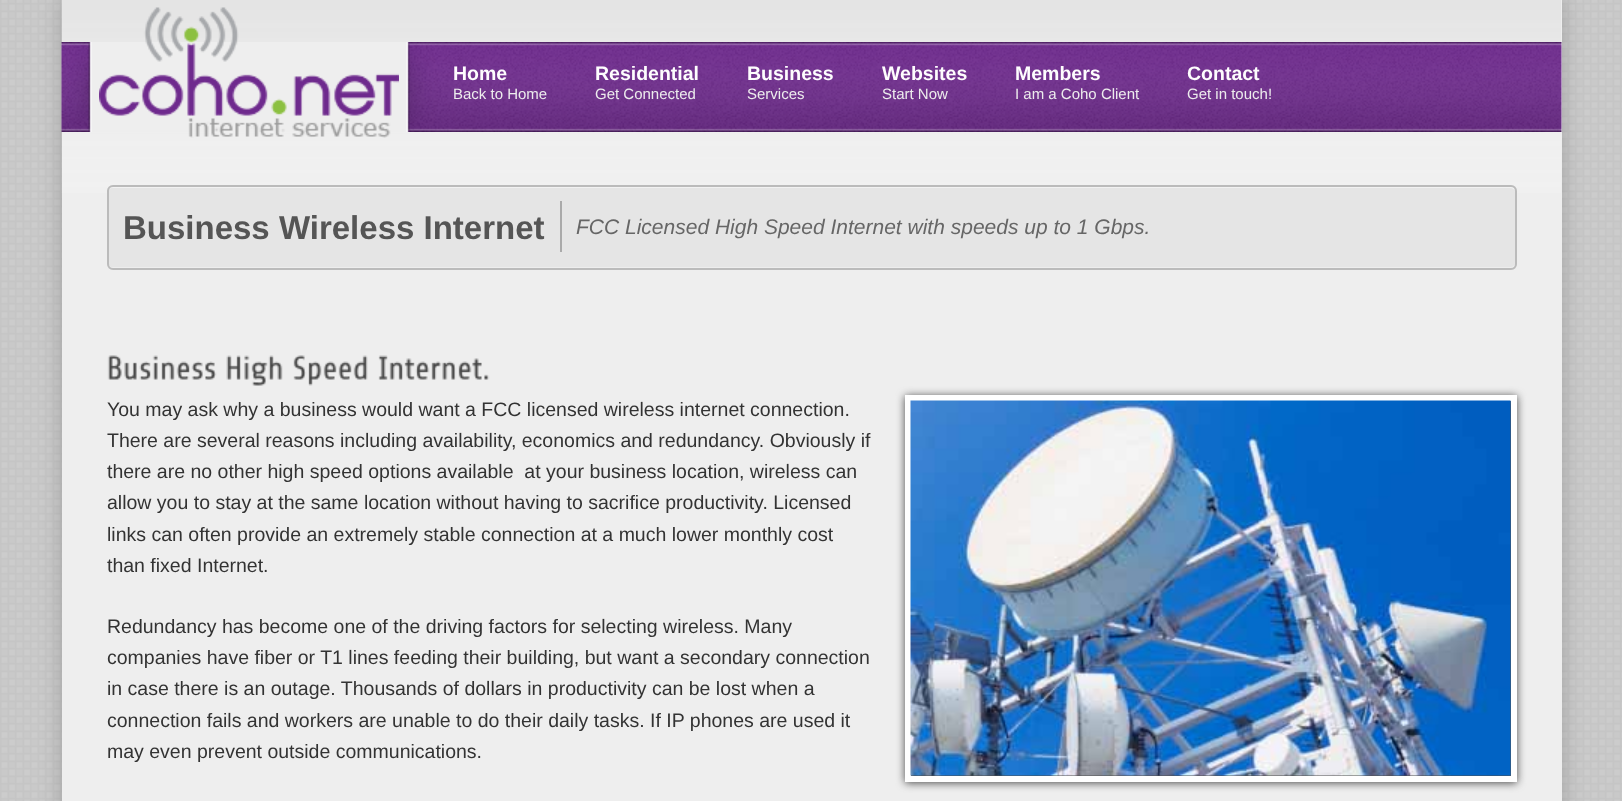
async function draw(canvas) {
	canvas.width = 1622;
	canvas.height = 801;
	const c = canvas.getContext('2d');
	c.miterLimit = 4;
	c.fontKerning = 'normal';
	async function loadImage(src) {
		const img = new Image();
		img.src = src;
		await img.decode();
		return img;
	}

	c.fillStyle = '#ccc';
	c.fillRect(0, 0, 1622, 801);
	c.drawImage(await loadImage('img1.png'), 0, 0, 1622, 801);
	c.fillStyle = '#00000033';
	c.filter = 'blur(11px)';
	c.beginPath();
	c.roundRect(62, -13, 1500, 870, 23);
	c.fill();
	c.filter = 'none';
	c.fillStyle = '#eee';
	c.fillRect(62, 0, 1500, 801);
	c.drawImage(await loadImage('img2.png'), 61, 0, 1500, 193);
	c.drawImage(await loadImage('img3.png'), 61, 42, 1501, 90);
	c.drawImage(await loadImage('img4.png'), 99, 7, 300, 131);
	c.font = 'bold 19.5px Liberation Sans';
	c.fillStyle = '#fefdfe';
	c.fillText('Home', 453, 80);
	c.font = '15px Liberation Sans';
	c.fillStyle = '#edeced';
	c.fillText('Back to Home', 453, 99);
	c.font = 'bold 19.5px Liberation Sans';
	c.fillStyle = '#fefdfe';
	c.fillText('Residential', 595, 80);
	c.font = '15px Liberation Sans';
	c.fillStyle = '#edeced';
	c.fillText('Get Connected', 595, 99);
	c.font = 'bold 19.5px Liberation Sans';
	c.fillStyle = '#fefdfe';
	c.fillText('Business', 747, 80);
	c.font = '15px Liberation Sans';
	c.fillStyle = '#edeced';
	c.fillText('Services', 747, 99);
	c.font = 'bold 19.5px Liberation Sans';
	c.fillStyle = '#fefdfe';
	c.fillText('Websites', 882, 80);
	c.font = '15px Liberation Sans';
	c.fillStyle = '#edeced';
	c.fillText('Start Now', 882, 99);
	c.font = 'bold 19.5px Liberation Sans';
	c.fillStyle = '#fefdfe';
	c.fillText('Members', 1015, 80);
	c.font = '15px Liberation Sans';
	c.fillStyle = '#edeced';
	c.fillText('I am a Coho Client', 1015, 99);
	c.font = 'bold 19.5px Liberation Sans';
	c.fillStyle = '#fefdfe';
	c.fillText('Contact', 1187, 80);
	c.font = '15px Liberation Sans';
	c.fillStyle = '#edeced';
	c.fillText('Get in touch!', 1187, 99);
	c.fillStyle = '#e5e5e5';
	c.beginPath();
	c.roundRect(107, 185, 1410, 85, 6);
	c.fill();
	c.fillStyle = '#ededed';
	c.beginPath();
	c.moveTo(108, 262);
	c.bezierCurveTo(108, 265, 109, 269, 113, 269);
	c.lineTo(1510, 269);
	c.bezierCurveTo(1514, 269, 1515, 265, 1515, 262);
	c.bezierCurveTo(1515, 265, 1513, 267, 1510, 267);
	c.lineTo(112, 267);
	c.bezierCurveTo(110, 267, 108, 265, 108, 262);
	c.closePath();
	c.fill();
	c.fillStyle = '#f2f2f2';
	c.beginPath();
	c.moveTo(112, 188);
	c.lineTo(1510, 188);
	c.bezierCurveTo(1513, 188, 1515, 190, 1515, 192);
	c.bezierCurveTo(1515, 189, 1513, 186, 1510, 186);
	c.lineTo(113, 186);
	c.bezierCurveTo(110, 186, 108, 189, 108, 192);
	c.bezierCurveTo(108, 190, 110, 188, 112, 188);
	c.closePath();
	c.fill();
	c.beginPath();
	c.roundRect(108, 186, 1408, 83, 5);
	c.strokeStyle = '#bbb';
	c.lineWidth = 2;
	c.stroke();
	c.font = 'bold 33px Liberation Sans';
	c.fillStyle = '#555';
	c.fillText('Business Wireless Internet', 123, 239);
	c.fillStyle = '#aaa';
	c.fillRect(560, 201, 2, 51);
	c.font = 'italic 21px Liberation Sans';
	c.fillStyle = '#666';
	c.fillText('FCC Licensed High Speed Internet with speeds up to 1 Gbps.', 576, 234);
	c.drawImage(await loadImage('img5.png'), 107, 355, 110, 25);
	c.drawImage(await loadImage('img6.png'), 226, 355, 57, 31);
	c.drawImage(await loadImage('img7.png'), 293, 355, 75, 31);
	c.drawImage(await loadImage('img8.png'), 378, 355, 112, 25);
	c.font = '19.5px Liberation Sans';
	c.fillStyle = '#333';
	c.fillText('You may ask why a business would want a FCC licensed wireless internet connection.', 107, 416);
	c.fillStyle = '#4a4a4a';
	c.filter = 'blur(4px)';
	c.beginPath();
	c.rect(905, 396, 612, 387);
	c.fill();
	c.filter = 'none';
	c.strokeStyle = '#fff';
	c.lineWidth = 6;
	c.strokeRect(908, 398, 606, 381);
	c.drawImage(await loadImage('img9.png'), 910, 400, 601, 376);
	c.fillStyle = '#333';
	for (const [text, x, y] of [
		['There are several reasons including availability, economics and redundancy. Obviously if', 107, 447],
		['there are no other high speed options available  at your business location, wireless can', 107, 478],
		['allow you to stay at the same location without having to sacrifice productivity. Licensed', 107, 509],
		['links can often provide an extremely stable connection at a much lower monthly cost', 107, 541],
		['than fixed Internet.', 107, 572],
		['Redundancy has become one of the driving factors for selecting wireless. Many', 107, 633],
		['companies have fiber or T1 lines feeding their building, but want a secondary connection', 107, 664],
		['in case there is an outage. Thousands of dollars in productivity can be lost when a', 107, 695],
		['connection fails and workers are unable to do their daily tasks. If IP phones are used it', 107, 727],
		['may even prevent outside communications.', 107, 758],
	]) {
		c.fillText(text, x, y);
	}
}

draw(document.querySelector('canvas'));
